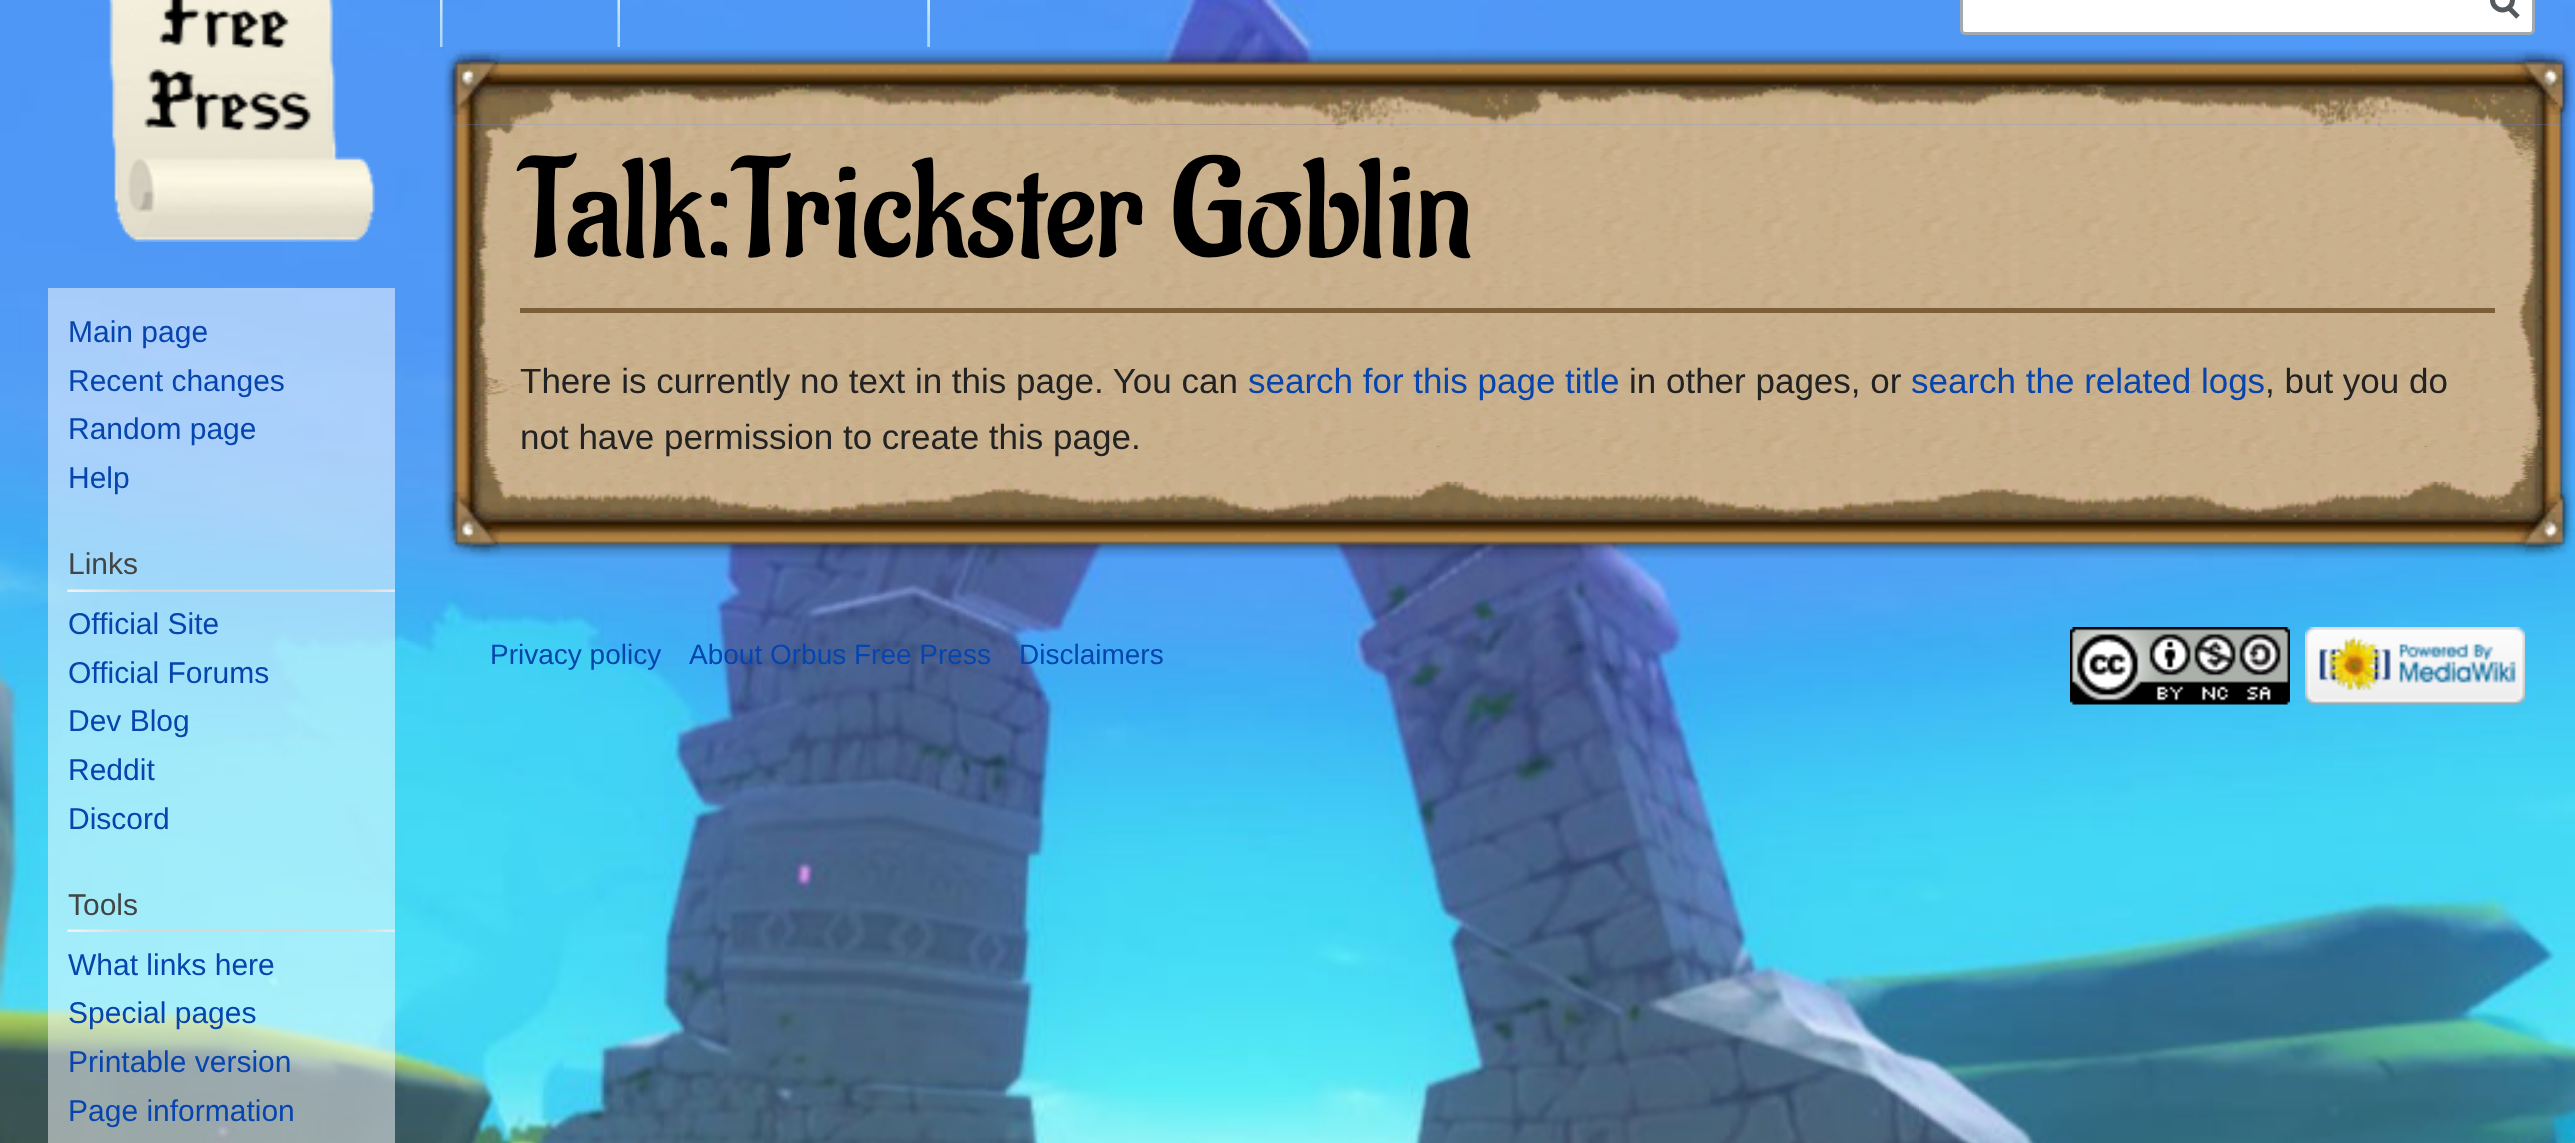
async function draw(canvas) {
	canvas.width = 2575;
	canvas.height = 1143;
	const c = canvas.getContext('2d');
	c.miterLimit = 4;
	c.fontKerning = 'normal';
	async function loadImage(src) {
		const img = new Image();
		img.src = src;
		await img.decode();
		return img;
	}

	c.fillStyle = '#fff';
	c.fillRect(0, 0, 2575, 1143);
	c.drawImage(await loadImage('img1.png'), 0, 0, 2575, 1143);
	c.drawImage(await loadImage('img2.png'), 440, 0, 3, 47);
	c.drawImage(await loadImage('img3.png'), 927, 0, 3, 47);
	c.drawImage(await loadImage('img4.png'), 617, 0, 3, 47);
	c.drawImage(await loadImage('img5.png'), 927, 0, 1, 47);
	c.beginPath();
	c.roundRect(1961.5, -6.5, 572, 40, 3.5);
	c.fill();
	c.strokeStyle = '#a2a9b1';
	c.lineWidth = 3;
	c.stroke();
	c.beginPath();
	c.moveTo(2518, 17);
	c.lineTo(2508, 7);
	c.strokeStyle = '#54595d';
	c.lineWidth = 5;
	c.stroke();
	c.beginPath();
	c.arc(2502.5, 0, 10, 0, 2 * Math.PI);
	c.stroke();
	c.drawImage(await loadImage('img6.png'), 109, 0, 266, 242);
	c.fillStyle = '#ffffff80';
	c.fillRect(48, 288, 347, 227);
	c.font = '30px Liberation Sans';
	c.fillStyle = '#0645ad';
	for (const [text, x, y] of [
		['Main page', 68, 342],
		['Recent changes', 68, 391],
		['Random page', 68, 439],
		['Help', 68, 488],
	]) {
		c.fillText(text, x, y);
	}
	c.fillStyle = '#ffffff80';
	c.fillRect(48, 515, 347, 340);
	c.fillStyle = '#444';
	c.fillText('Links', 68, 574);
	c.drawImage(await loadImage('img7.png'), 67, 589, 328, 3);
	c.fillStyle = '#0645ad';
	for (const [text, x, y] of [
		['Official Site', 68, 634],
		['Official Forums', 68, 683],
		['Dev Blog', 68, 731],
		['Reddit', 68, 780],
		['Discord', 68, 829],
	]) {
		c.fillText(text, x, y);
	}
	c.fillStyle = '#ffffff80';
	c.fillRect(48, 855, 347, 288);
	c.fillStyle = '#444';
	c.fillText('Tools', 68, 915);
	c.drawImage(await loadImage('img8.png'), 67, 929, 328, 3);
	c.fillStyle = '#0645ad';
	for (const [text, x, y] of [
		['What links here', 68, 975],
		['Special pages', 68, 1023],
		['Printable version', 68, 1072],
		['Page information', 68, 1121],
	]) {
		c.fillText(text, x, y);
	}
	c.drawImage(await loadImage('img9.png'), 444, 49, 2129, 509);
	c.fillStyle = '#7c5e38';
	c.fillRect(520, 308, 1975, 5);
	c.font = '140px Aladin';
	c.fillStyle = '#000';
	c.fillText('Talk:Trickster Goblin', 520, 255);
	c.font = '35px Liberation Sans';
	c.fillStyle = '#222';
	c.fillText('There is currently no text in this page. You can', 520, 393);
	c.fillStyle = '#0645ad';
	c.fillText('search for this page title', 1248, 393);
	c.fillStyle = '#222';
	c.fillText('in other pages, or', 1629, 393);
	c.fillStyle = '#0645ad';
	c.fillText('search the related logs', 1911, 393);
	c.fillStyle = '#222';
	c.fillText(', but you do', 2265, 393);
	c.fillText('not have permission to create this page.', 520, 449);
	c.font = '28px Liberation Sans';
	c.fillStyle = '#0645ad';
	for (const [text, x, y] of [
		['Privacy policy', 490, 664],
		['About Orbus Free Press', 689, 664],
		['Disclaimers', 1019, 664],
	]) {
		c.fillText(text, x, y);
	}
	c.drawImage(await loadImage('img10.png'), 2070, 627, 220, 78);
	c.drawImage(await loadImage('img11.png'), 2305, 627, 220, 78);
}

draw(document.querySelector('canvas'));
